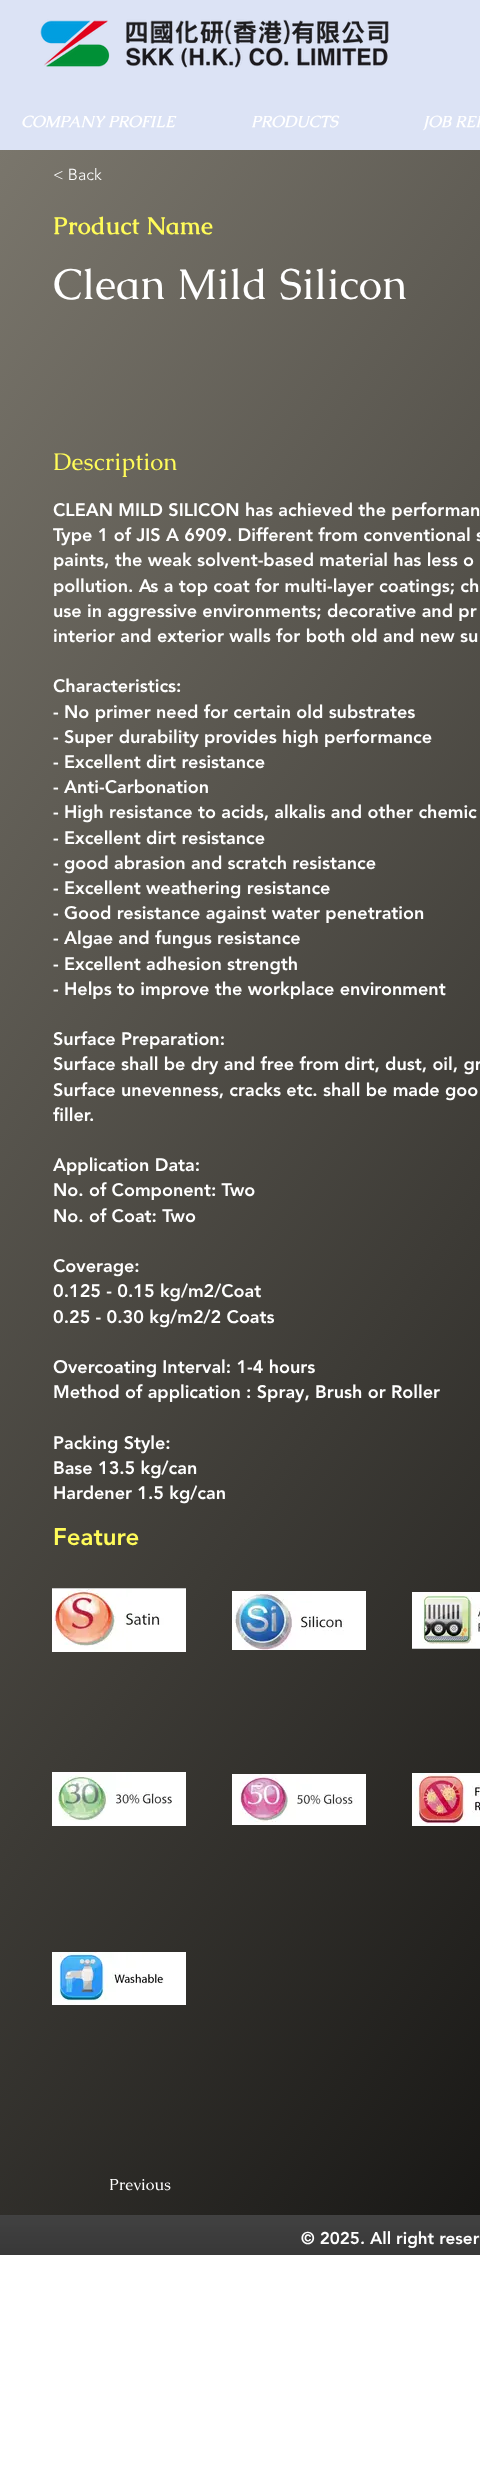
async function draw(canvas) {
	canvas.width = 480;
	canvas.height = 2466;
	const c = canvas.getContext('2d');
	c.miterLimit = 4;
	c.fontKerning = 'normal';
	async function loadImage(src) {
		const img = new Image();
		img.src = src;
		await img.decode();
		return img;
	}
	let gradient;

	c.fillStyle = '#fff';
	c.fillRect(0, 0, 480, 2466);
	c.fillStyle = '#dce3f5';
	c.fillRect(0, 0, 480, 150);
	c.drawImage(await loadImage('img1.png'), 40, 19, 350, 49);
	c.font = 'italic bold 16px Caudex';
	c.fillStyle = '#fff';
	for (const [text, x, y] of [
		['COMPANY PROFILE', 21, 127],
		['PRODUCTS', 251, 127],
		['JOB REF', 423, 127],
	]) {
		c.fillText(text, x, y);
	}
	gradient = c.createLinearGradient(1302, 1772, -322, 593);
	gradient.addColorStop(0, '#000');
	gradient.addColorStop(1, '#7a766c');
	c.fillStyle = gradient;
	c.fillRect(0, 150, 480, 2065);
	c.font = '300 16px "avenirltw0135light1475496"';
	c.fillStyle = '#fff';
	c.fillText('< Back', 53, 180);
	c.letterSpacing = '0.25px';
	c.font = 'bold 24px Caudex';
	c.fillStyle = '#fffb59';
	c.fillText('Product Name', 53, 234);
	c.letterSpacing = '0px';
	c.font = '43px Caudex';
	c.fillStyle = '#fff';
	c.fillText('Clean Mild Silicon', 53, 299);
	c.font = '24px Caudex';
	c.fillStyle = '#fffb59';
	c.fillText('Description', 53, 470);
	c.font = '900 18px "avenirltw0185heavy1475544"';
	c.fillStyle = '#fff';
	for (const [text, x, y] of [
		['CLEAN MILD SILICON has achieved the performan', 53, 516],
		['Type 1 of JIS A 6909. Different from conventional s', 53, 541],
		['paints, the weak solvent-based material has less o', 53, 566],
		['pollution. As a top coat for multi-layer coatings; ch', 53, 592],
		['use in aggressive environments; decorative and pr', 53, 617],
		['interior and exterior walls for both old and new su', 53, 642],
		['Characteristics:', 53, 692],
		['- No primer need for certain old substrates', 53, 718],
		['- Super durability provides high performance', 53, 743],
		['- Excellent dirt resistance', 53, 768],
		['- Anti-Carbonation', 53, 793],
		['- High resistance to acids, alkalis and other chemic', 53, 818],
		['- Excellent dirt resistance', 53, 844],
		['- good abrasion and scratch resistance', 53, 869],
		['- Excellent weathering resistance', 53, 894],
		['- Good resistance against water penetration', 53, 919],
		['- Algae and fungus resistance', 53, 944],
		['- Excellent adhesion strength', 53, 970],
		['- Helps to improve the workplace environment', 53, 995],
		['Surface Preparation:', 53, 1045],
		['Surface shall be dry and free from dirt, dust, oil, gr', 53, 1070],
		['Surface unevenness, cracks etc. shall be made goo', 53, 1096],
		['filler.', 53, 1121],
		['Application Data:', 53, 1171],
		['No. of Component: Two', 53, 1196],
		['No. of Coat: Two', 53, 1222],
		['Coverage:', 53, 1272],
		['0.125 - 0.15 kg/m2/Coat', 53, 1297],
		['0.25 - 0.30 kg/m2/2 Coats', 53, 1323],
		['Overcoating Interval: 1-4 hours', 53, 1373],
		['Method of application : Spray, Brush or Roller', 53, 1398],
		['Packing Style:', 53, 1449],
		['Base 13.5 kg/can', 53, 1474],
		['Hardener 1.5 kg/can', 53, 1499],
	]) {
		c.fillText(text, x, y);
	}
	c.font = '900 24px "avenirltw0185heavy1475544"';
	c.fillStyle = '#fffb59';
	c.fillText('Feature', 53, 1545);
	c.fillStyle = '#c7c7c7';
	c.fillRect(52, 1588, 134, 1);
	c.drawImage(await loadImage('img2.png'), 52, 1589, 134, 63);
	c.drawImage(await loadImage('img3.png'), 232, 1591, 134, 59);
	c.fillRect(412, 1648, 68, 1);
	c.drawImage(await loadImage('img4.png'), 412, 1592, 68, 56);
	c.drawImage(await loadImage('img5.png'), 52, 1772, 134, 54);
	c.drawImage(await loadImage('img6.png'), 232, 1774, 134, 51);
	c.drawImage(await loadImage('img7.png'), 412, 1773, 68, 53);
	c.drawImage(await loadImage('img8.png'), 52, 1952, 134, 53);
	c.font = '16px Caudex';
	c.fillStyle = '#fff';
	c.fillText('Previous', 109, 2190);
	c.fillStyle = '#000';
	c.fillRect(0, 2215, 480, 40);
	c.drawImage(await loadImage('img9.png'), 0, 2215, 480, 40);
	c.font = '900 17px "avenirltw0185heavy1475544"';
	c.fillStyle = '#fff';
	c.fillText('© 2025. All right reser', 301, 2244);
}

draw(document.querySelector('canvas'));
